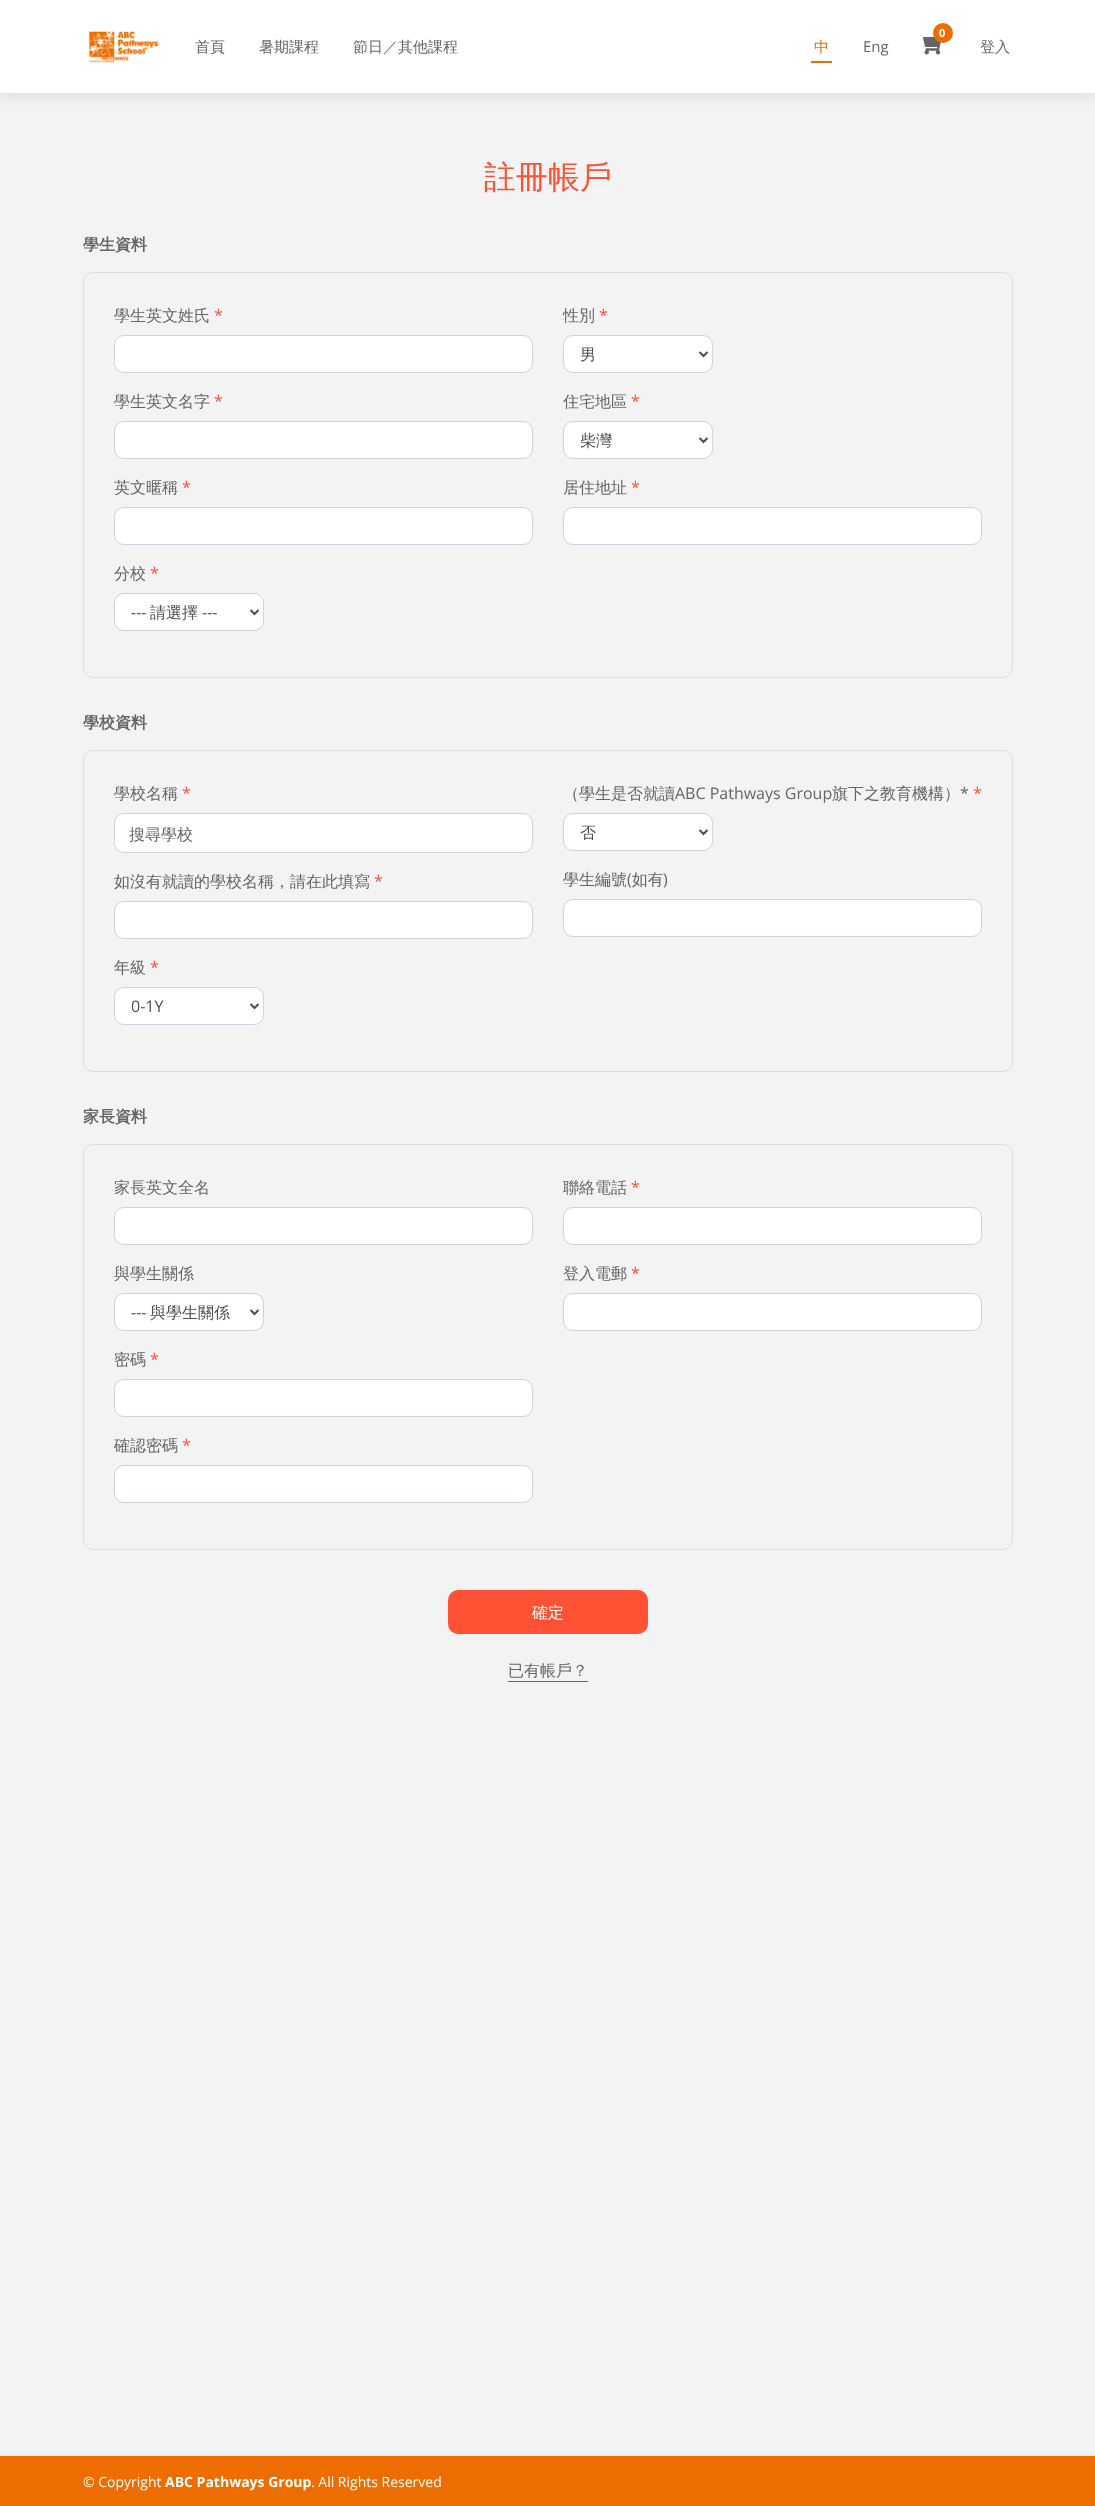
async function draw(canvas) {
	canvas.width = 1095;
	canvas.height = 2506;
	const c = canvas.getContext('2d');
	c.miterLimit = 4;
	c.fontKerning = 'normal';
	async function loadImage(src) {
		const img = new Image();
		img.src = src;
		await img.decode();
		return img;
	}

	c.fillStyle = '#f3f3f3';
	c.fillRect(0, 0, 1095, 2506);
	c.fillStyle = '#0000001a';
	c.filter = 'blur(7.5px)';
	c.beginPath();
	c.rect(0, 2, 1095, 93);
	c.fill();
	c.filter = 'none';
	c.fillStyle = '#fff';
	c.fillRect(0, 0, 1095, 93);
	c.drawImage(await loadImage('img1.png'), 88, 31, 71, 33);
	c.drawImage(await loadImage('img2.png'), 923, 37, 18, 18);
	c.fillStyle = '#ed6d00';
	c.beginPath();
	c.arc(943, 33, 10, 0, 2 * Math.PI);
	c.fill();
	c.font = 'bold 11px Open Sans';
	c.fillStyle = '#fff';
	c.fillText('0', 939, 37);
	c.font = '500 15px WenQuanYi Zen Hei';
	c.fillStyle = '#656565';
	for (const [text, x, y] of [
		['首頁', 195, 52],
		['暑期課程', 259, 52],
		['節日／其他課程', 353, 52],
	]) {
		c.fillText(text, x, y);
	}
	c.fillStyle = '#ed6d00';
	c.fillText('中', 814, 52);
	c.fillRect(811, 61, 21, 2);
	c.font = '15px Open Sans';
	c.fillStyle = '#656565';
	c.fillText('Eng', 863, 52);
	c.font = '500 15px WenQuanYi Zen Hei';
	c.fillText('登入', 980, 52);
	c.font = '500 32px WenQuanYi Zen Hei';
	c.fillStyle = '#ff5133';
	c.fillText('註冊帳戶', 484, 188);
	c.font = 'bold 16px WenQuanYi Zen Hei';
	c.fillStyle = '#656565';
	c.fillText('學生資料', 83, 250);
	c.beginPath();
	c.roundRect(83.5, 272.5, 929, 405, 9.5);
	c.strokeStyle = '#dedede';
	c.stroke();
	c.font = '500 16px WenQuanYi Zen Hei';
	c.fillText('學生英文姓氏', 114, 321);
	c.font = '16px Open Sans';
	c.fillStyle = '#ff5133';
	c.fillText('*', 214, 321);
	c.fillStyle = '#fff';
	c.beginPath();
	c.roundRect(114.5, 335.5, 418, 37, 9.5);
	c.fill();
	c.strokeStyle = '#ced4da';
	c.stroke();
	c.font = '500 16px WenQuanYi Zen Hei';
	c.fillStyle = '#656565';
	c.fillText('學生英文名字', 114, 407);
	c.font = '16px Open Sans';
	c.fillStyle = '#ff5133';
	c.fillText('*', 214, 407);
	c.fillStyle = '#fff';
	c.beginPath();
	c.roundRect(114.5, 421.5, 418, 37, 9.5);
	c.fill();
	c.stroke();
	c.font = '500 16px WenQuanYi Zen Hei';
	c.fillStyle = '#656565';
	c.fillText('英文暱稱', 114, 493);
	c.font = '16px Open Sans';
	c.fillStyle = '#ff5133';
	c.fillText('*', 182, 493);
	c.fillStyle = '#fff';
	c.beginPath();
	c.roundRect(114.5, 507.5, 418, 37, 9.5);
	c.fill();
	c.stroke();
	c.font = '500 16px WenQuanYi Zen Hei';
	c.fillStyle = '#656565';
	c.fillText('分校', 114, 579);
	c.font = '16px Open Sans';
	c.fillStyle = '#ff5133';
	c.fillText('*', 150, 579);
	c.fillStyle = '#fff';
	c.beginPath();
	c.roundRect(114.5, 593.5, 149, 37, 9.5);
	c.fill();
	c.stroke();
	c.beginPath();
	c.moveTo(250.5, 610);
	c.lineTo(254.5, 614);
	c.lineTo(258.5, 610);
	c.strokeStyle = '#495057';
	c.lineWidth = 2;
	c.stroke();
	c.fillStyle = '#495057';
	c.fillText('---', 131, 618);
	c.font = '500 16px WenQuanYi Zen Hei';
	c.fillText('請選擇', 150, 618);
	c.font = '16px Open Sans';
	c.fillText('---', 202, 618);
	c.font = '500 16px WenQuanYi Zen Hei';
	c.fillStyle = '#656565';
	c.fillText('性別', 563, 321);
	c.font = '16px Open Sans';
	c.fillStyle = '#ff5133';
	c.fillText('*', 599, 321);
	c.fillStyle = '#fff';
	c.beginPath();
	c.roundRect(563.5, 335.5, 149, 37, 9.5);
	c.fill();
	c.strokeStyle = '#ced4da';
	c.lineWidth = 1;
	c.stroke();
	c.beginPath();
	c.moveTo(699.5, 352);
	c.lineTo(703.5, 356);
	c.lineTo(707.5, 352);
	c.strokeStyle = '#495057';
	c.lineWidth = 2;
	c.stroke();
	c.font = '500 16px WenQuanYi Zen Hei';
	c.fillStyle = '#495057';
	c.fillText('男', 580, 360);
	c.fillStyle = '#656565';
	c.fillText('住宅地區', 563, 407);
	c.font = '16px Open Sans';
	c.fillStyle = '#ff5133';
	c.fillText('*', 631, 407);
	c.fillStyle = '#fff';
	c.beginPath();
	c.roundRect(563.5, 421.5, 149, 37, 9.5);
	c.fill();
	c.strokeStyle = '#ced4da';
	c.lineWidth = 1;
	c.stroke();
	c.beginPath();
	c.moveTo(699.5, 438);
	c.lineTo(703.5, 442);
	c.lineTo(707.5, 438);
	c.strokeStyle = '#495057';
	c.lineWidth = 2;
	c.stroke();
	c.font = '500 16px WenQuanYi Zen Hei';
	c.fillStyle = '#495057';
	c.fillText('柴灣', 580, 446);
	c.fillStyle = '#656565';
	c.fillText('居住地址', 563, 493);
	c.font = '16px Open Sans';
	c.fillStyle = '#ff5133';
	c.fillText('*', 631, 493);
	c.fillStyle = '#fff';
	c.beginPath();
	c.roundRect(563.5, 507.5, 418, 37, 9.5);
	c.fill();
	c.strokeStyle = '#ced4da';
	c.lineWidth = 1;
	c.stroke();
	c.font = 'bold 16px WenQuanYi Zen Hei';
	c.fillStyle = '#656565';
	c.fillText('學校資料', 83, 728);
	c.beginPath();
	c.roundRect(83.5, 750.5, 929, 321, 9.5);
	c.strokeStyle = '#dedede';
	c.stroke();
	c.font = '500 16px WenQuanYi Zen Hei';
	c.fillText('學校名稱', 114, 799);
	c.font = '16px Open Sans';
	c.fillStyle = '#ff5133';
	c.fillText('*', 182, 799);
	c.fillStyle = '#fff';
	c.beginPath();
	c.roundRect(114.5, 813.5, 418, 39, 9.5);
	c.fill();
	c.strokeStyle = '#ced4da';
	c.stroke();
	c.font = '500 16px WenQuanYi Zen Hei';
	c.fillStyle = '#656565';
	c.fillText('搜尋學校', 129, 840);
	c.fillText('如沒有就讀的學校名稱，請在此填寫', 114, 887);
	c.font = '16px Open Sans';
	c.fillStyle = '#ff5133';
	c.fillText('*', 374, 887);
	c.fillStyle = '#fff';
	c.beginPath();
	c.roundRect(114.5, 901.5, 418, 37, 9.5);
	c.fill();
	c.stroke();
	c.font = '500 16px WenQuanYi Zen Hei';
	c.fillStyle = '#656565';
	c.fillText('年級', 114, 973);
	c.font = '16px Open Sans';
	c.fillStyle = '#ff5133';
	c.fillText('*', 150, 973);
	c.fillStyle = '#fff';
	c.beginPath();
	c.roundRect(114.5, 987.5, 149, 37, 9.5);
	c.fill();
	c.stroke();
	c.beginPath();
	c.moveTo(250.5, 1004);
	c.lineTo(254.5, 1008);
	c.lineTo(258.5, 1004);
	c.strokeStyle = '#495057';
	c.lineWidth = 2;
	c.stroke();
	c.fillStyle = '#495057';
	c.fillText('0-1Y', 131, 1012);
	c.font = '500 16px WenQuanYi Zen Hei';
	c.fillStyle = '#656565';
	c.fillText('（學生是否就讀', 563, 799);
	c.font = '16px Open Sans';
	c.fillText('ABC Pathways Group', 675, 799);
	c.font = '500 16px WenQuanYi Zen Hei';
	c.fillText('旗下之教育機構）', 832, 799);
	c.font = '16px Open Sans';
	c.fillText('*', 960, 799);
	c.fillStyle = '#ff5133';
	c.fillText('*', 973, 799);
	c.fillStyle = '#fff';
	c.beginPath();
	c.roundRect(563.5, 813.5, 149, 37, 9.5);
	c.fill();
	c.strokeStyle = '#ced4da';
	c.lineWidth = 1;
	c.stroke();
	c.beginPath();
	c.moveTo(699.5, 830);
	c.lineTo(703.5, 834);
	c.lineTo(707.5, 830);
	c.strokeStyle = '#495057';
	c.lineWidth = 2;
	c.stroke();
	c.font = '500 16px WenQuanYi Zen Hei';
	c.fillStyle = '#495057';
	c.fillText('否', 580, 838);
	c.fillStyle = '#656565';
	c.fillText('學生編號 如有', 563, 885);
	c.font = '16px Open Sans';
	c.fillText('(', 627, 885);
	c.fillText(')', 663, 885);
	c.fillStyle = '#fff';
	c.beginPath();
	c.roundRect(563.5, 899.5, 418, 37, 9.5);
	c.fill();
	c.strokeStyle = '#ced4da';
	c.lineWidth = 1;
	c.stroke();
	c.font = 'bold 16px WenQuanYi Zen Hei';
	c.fillStyle = '#656565';
	c.fillText('家長資料', 83, 1122);
	c.beginPath();
	c.roundRect(83.5, 1144.5, 929, 405, 9.5);
	c.strokeStyle = '#dedede';
	c.stroke();
	c.font = '500 16px WenQuanYi Zen Hei';
	c.fillText('家長英文全名', 114, 1193);
	c.fillStyle = '#fff';
	c.beginPath();
	c.roundRect(114.5, 1207.5, 418, 37, 9.5);
	c.fill();
	c.strokeStyle = '#ced4da';
	c.stroke();
	c.fillStyle = '#656565';
	c.fillText('與學生關係', 114, 1279);
	c.fillStyle = '#fff';
	c.beginPath();
	c.roundRect(114.5, 1293.5, 149, 37, 9.5);
	c.fill();
	c.stroke();
	c.beginPath();
	c.moveTo(250.5, 1310);
	c.lineTo(254.5, 1314);
	c.lineTo(258.5, 1310);
	c.strokeStyle = '#495057';
	c.lineWidth = 2;
	c.stroke();
	c.font = '16px Open Sans';
	c.fillStyle = '#495057';
	c.fillText('---', 131, 1318);
	c.font = '500 16px WenQuanYi Zen Hei';
	c.fillText('與學生關係', 150, 1318);
	c.fillStyle = '#656565';
	c.fillText('密碼', 114, 1365);
	c.font = '16px Open Sans';
	c.fillStyle = '#ff5133';
	c.fillText('*', 150, 1365);
	c.fillStyle = '#fff';
	c.beginPath();
	c.roundRect(114.5, 1379.5, 418, 37, 9.5);
	c.fill();
	c.strokeStyle = '#ced4da';
	c.lineWidth = 1;
	c.stroke();
	c.font = '500 16px WenQuanYi Zen Hei';
	c.fillStyle = '#656565';
	c.fillText('確認密碼', 114, 1451);
	c.font = '16px Open Sans';
	c.fillStyle = '#ff5133';
	c.fillText('*', 182, 1451);
	c.fillStyle = '#fff';
	c.beginPath();
	c.roundRect(114.5, 1465.5, 418, 37, 9.5);
	c.fill();
	c.stroke();
	c.font = '500 16px WenQuanYi Zen Hei';
	c.fillStyle = '#656565';
	c.fillText('聯絡電話', 563, 1193);
	c.font = '16px Open Sans';
	c.fillStyle = '#ff5133';
	c.fillText('*', 631, 1193);
	c.fillStyle = '#fff';
	c.beginPath();
	c.roundRect(563.5, 1207.5, 418, 37, 9.5);
	c.fill();
	c.stroke();
	c.font = '500 16px WenQuanYi Zen Hei';
	c.fillStyle = '#656565';
	c.fillText('登入電郵', 563, 1279);
	c.font = '16px Open Sans';
	c.fillStyle = '#ff5133';
	c.fillText('*', 631, 1279);
	c.fillStyle = '#fff';
	c.beginPath();
	c.roundRect(563.5, 1293.5, 418, 37, 9.5);
	c.fill();
	c.stroke();
	c.fillStyle = '#ff5133';
	c.beginPath();
	c.roundRect(448, 1590, 200, 44, 10);
	c.fill();
	c.font = '500 16px WenQuanYi Zen Hei';
	c.fillStyle = '#fff';
	c.fillText('確定', 532, 1618);
	c.fillStyle = '#656565';
	c.fillText('已有帳戶？', 508, 1676);
	c.fillRect(508, 1681, 80, 1);
	c.fillStyle = '#ed6d00';
	c.fillRect(0, 2456, 1095, 50);
	c.font = '14px Open Sans';
	c.fillStyle = '#fff';
	c.fillText('© Copyright', 83, 2487);
	c.font = 'bold 14px Open Sans';
	c.fillText('ABC Pathways Group', 165, 2487);
	c.font = '14px Open Sans';
	c.fillText('. All Rights Reserved', 311, 2487);
}

draw(document.querySelector('canvas'));
